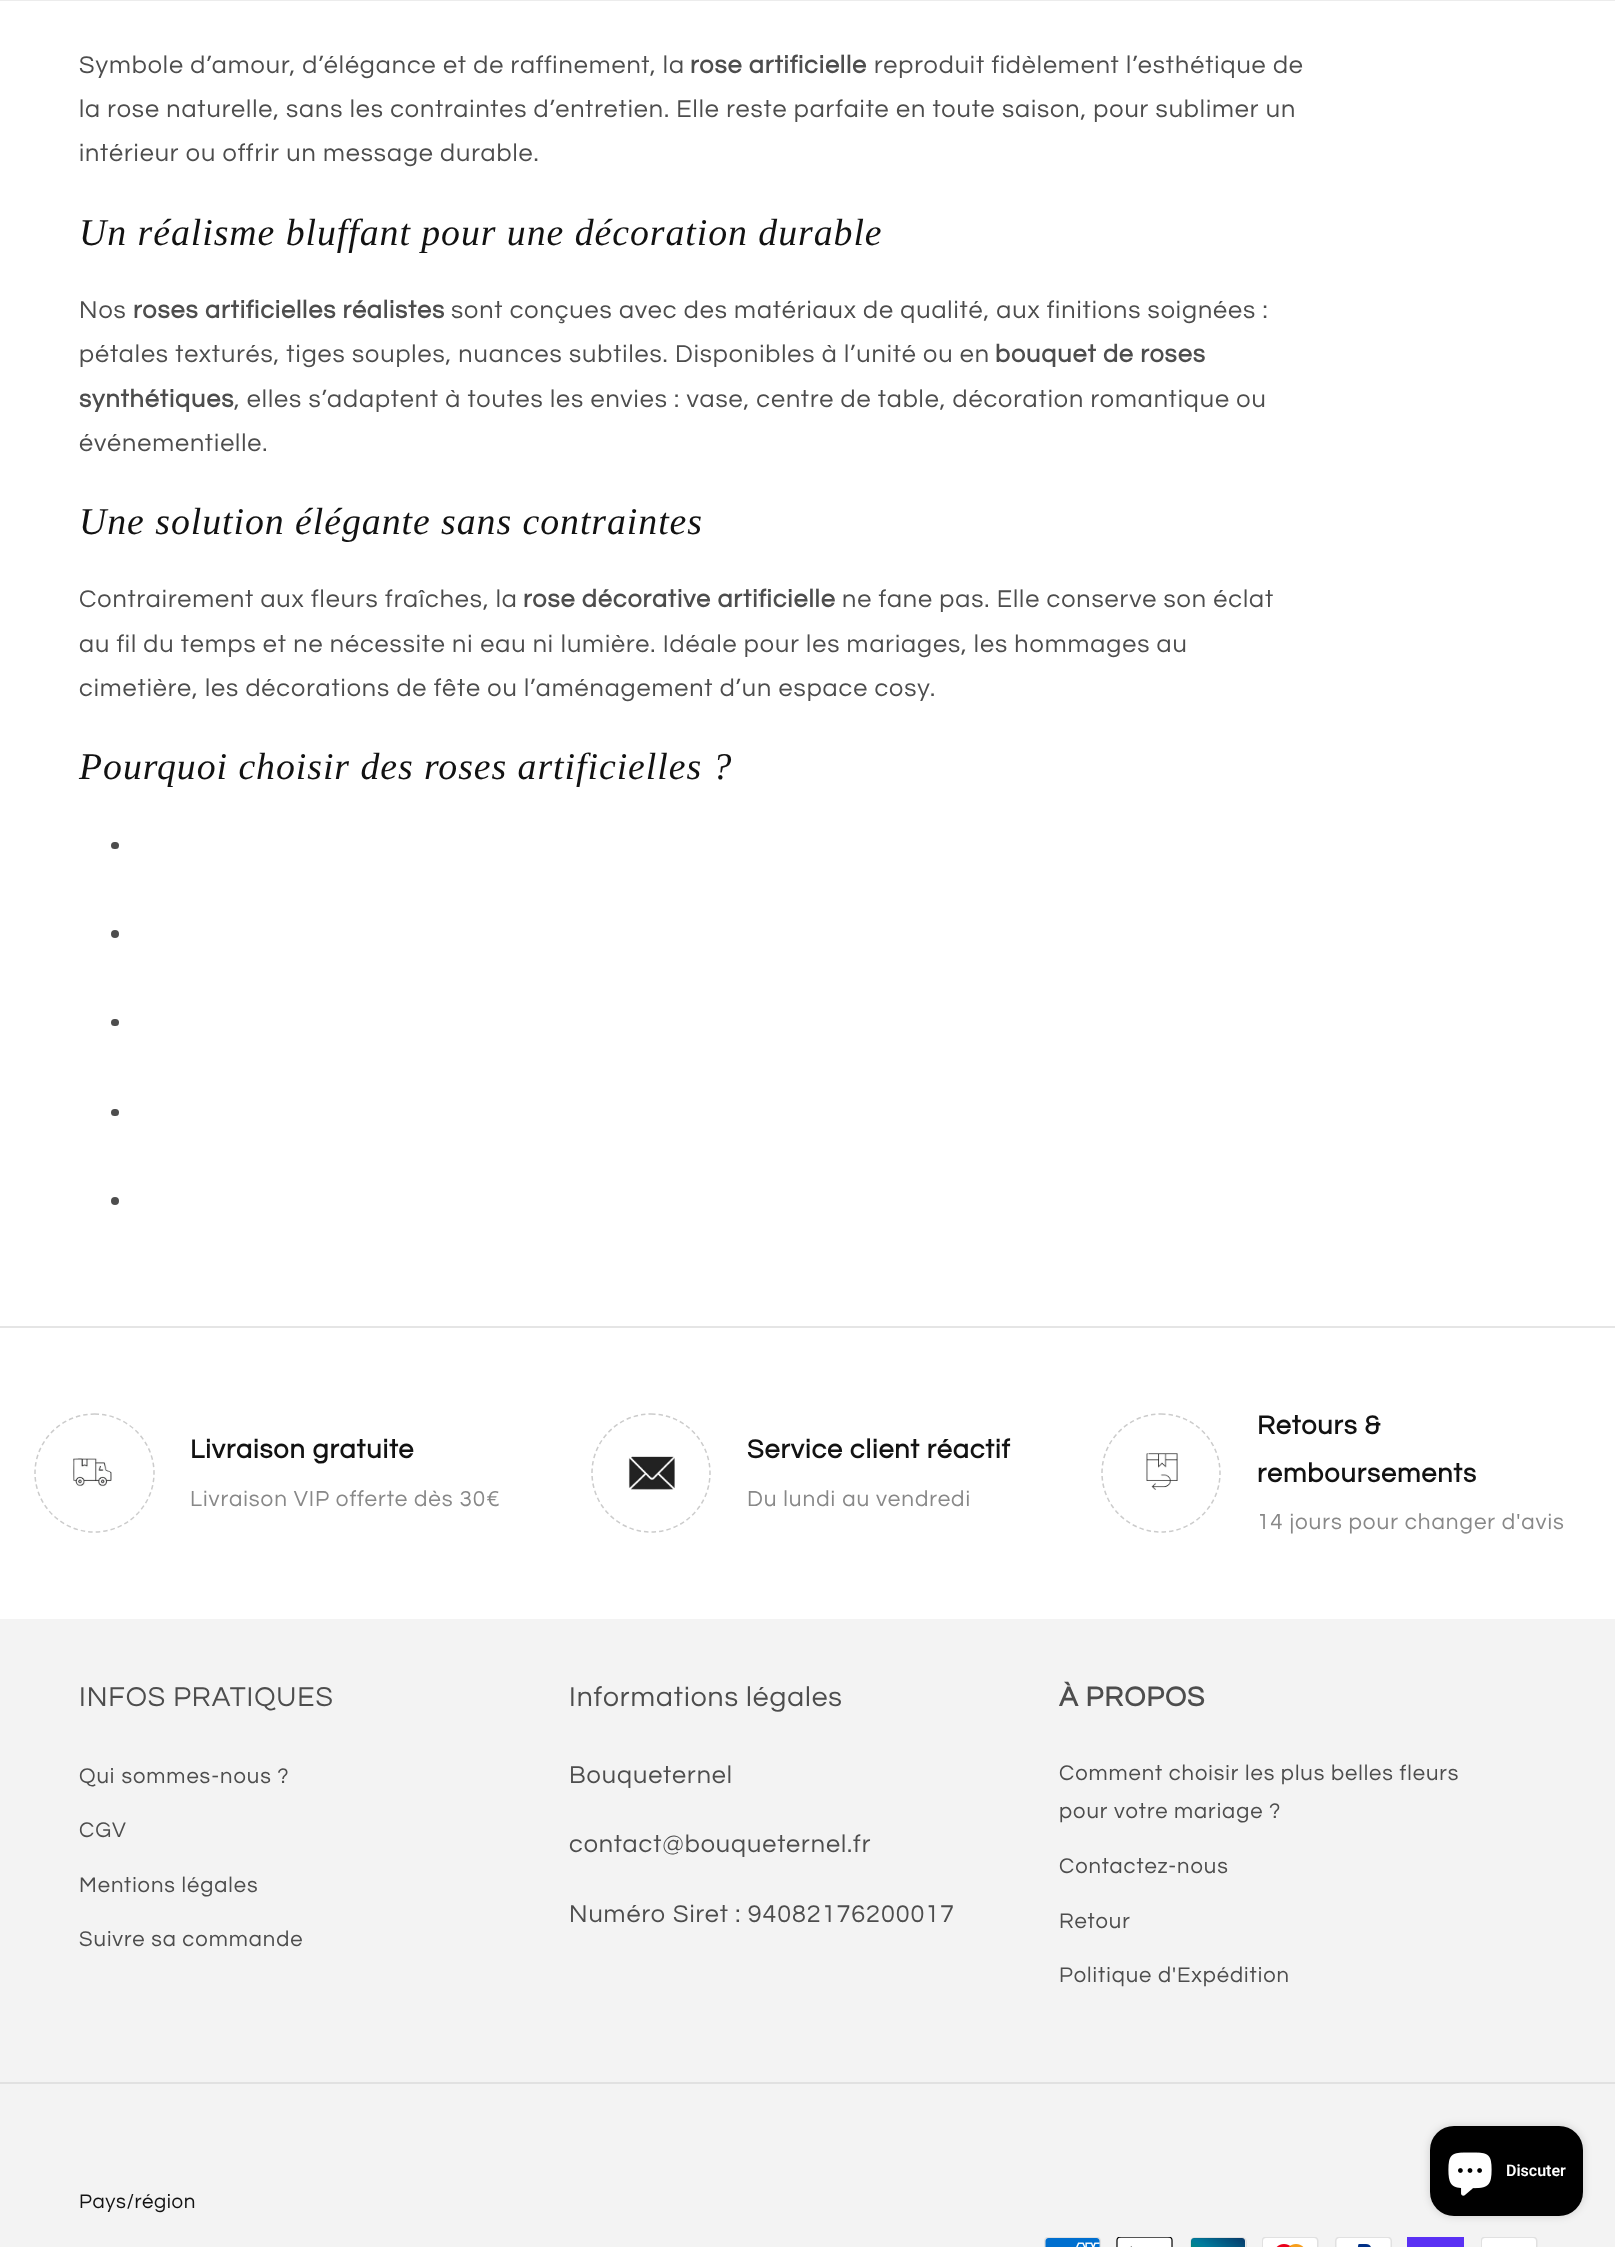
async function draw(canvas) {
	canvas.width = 1615;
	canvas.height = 2247;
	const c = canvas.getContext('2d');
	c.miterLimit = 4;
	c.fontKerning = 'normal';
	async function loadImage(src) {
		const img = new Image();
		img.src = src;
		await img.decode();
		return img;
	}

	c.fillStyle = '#fff';
	c.fillRect(0, 0, 1615, 2247);
	c.fillStyle = '#12121214';
	c.fillRect(0, 0, 1615, 1);
	c.letterSpacing = '0.95px';
	c.font = '25.2px Questrial';
	c.fillStyle = '#4d4d4d';
	c.fillText('Symbole d’amour, d’élégance et de raffinement, la', 79, 73);
	c.font = 'bold 25.2px Questrial';
	c.fillText('rose artificielle', 690, 73);
	c.font = '25.2px Questrial';
	for (const [text, x, y] of [
		['reproduit fidèlement l’esthétique de', 874, 73],
		['la rose naturelle, sans les contraintes d’entretien. Elle reste parfaite en toute saison, pour sublimer un', 79, 117],
		['intérieur ou offrir un message durable.', 79, 161],
	]) {
		c.fillText(text, x, y);
	}
	c.font = 'italic 37.8px Liberation Serif';
	c.fillStyle = '#121212';
	c.fillText('Un réalisme bluffant pour une décoration durable', 79, 245);
	c.font = '25.2px Questrial';
	c.fillStyle = '#4d4d4d';
	c.fillText('Nos', 79, 318);
	c.font = 'bold 25.2px Questrial';
	c.fillText('roses artificielles réalistes', 133, 318);
	c.font = '25.2px Questrial';
	c.fillText('sont conçues avec des matériaux de qualité, aux finitions soignées :', 451, 318);
	c.fillText('pétales texturés, tiges souples, nuances subtiles. Disponibles à l’unité ou en', 79, 362);
	c.font = 'bold 25.2px Questrial';
	c.fillText('bouquet de roses', 995, 362);
	c.fillText('synthétiques', 79, 407);
	c.font = '25.2px Questrial';
	c.fillText(', elles s’adaptent à toutes les envies : vase, centre de table, décoration romantique ou', 234, 407);
	c.fillText('événementielle.', 79, 451);
	c.font = 'italic 37.8px Liberation Serif';
	c.fillStyle = '#121212';
	c.fillText('Une solution élégante sans contraintes', 79, 534);
	c.font = '25.2px Questrial';
	c.fillStyle = '#4d4d4d';
	c.fillText('Contrairement aux fleurs fraîches, la', 79, 607);
	c.font = 'bold 25.2px Questrial';
	c.fillText('rose décorative artificielle', 523, 607);
	c.font = '25.2px Questrial';
	for (const [text, x, y] of [
		['ne fane pas. Elle conserve son éclat', 842, 607],
		['au fil du temps et ne nécessite ni eau ni lumière. Idéale pour les mariages, les hommages au', 79, 652],
		['cimetière, les décorations de fête ou l’aménagement d’un espace cosy.', 79, 696],
	]) {
		c.fillText(text, x, y);
	}
	c.font = 'italic 37.8px Liberation Serif';
	c.fillStyle = '#121212';
	c.fillText('Pourquoi choisir des roses artificielles ?', 79, 779);
	c.fillStyle = '#4d4d4d';
	c.beginPath();
	c.roundRect(111, 842, 8, 7, 3.5);
	c.fill();
	c.beginPath();
	c.arc(115, 934, 4, 0, 2 * Math.PI);
	c.fill();
	c.beginPath();
	c.roundRect(111, 1019, 8, 7, 3.5);
	c.fill();
	c.beginPath();
	c.roundRect(111, 1109, 8, 7, 3.5);
	c.fill();
	c.beginPath();
	c.arc(115, 1201, 4, 0, 2 * Math.PI);
	c.fill();
	c.fillStyle = '#e5e5e5';
	c.fillRect(0, 1326, 1615, 2);
	c.beginPath();
	c.moveTo(94.5, 1414);
	c.bezierCurveTo(127, 1414, 154, 1440.5, 154, 1473);
	c.bezierCurveTo(154, 1505.5, 127, 1532, 94.5, 1532);
	c.bezierCurveTo(62, 1532, 35, 1505.5, 35, 1473);
	c.bezierCurveTo(35, 1440.5, 62, 1414, 94.5, 1414);
	c.closePath();
	c.strokeStyle = '#ccc';
	c.lineWidth = 1.5;
	c.setLineDash([4.5, 3]);
	c.stroke();
	c.drawImage(await loadImage('img1.png'), 73, 1458, 39, 29);
	c.font = 'bold 27px Questrial';
	c.fillStyle = '#121212';
	c.fillText('Livraison gratuite', 190, 1458);
	c.font = '22.5px Questrial';
	c.fillStyle = '#888';
	c.fillText('Livraison VIP offerte dès 30€', 190, 1506);
	c.beginPath();
	c.moveTo(651, 1414);
	c.bezierCurveTo(683.5, 1414, 710, 1440.5, 710, 1473);
	c.bezierCurveTo(710, 1505.5, 683.5, 1532, 651, 1532);
	c.bezierCurveTo(618.5, 1532, 592, 1505.5, 592, 1473);
	c.bezierCurveTo(592, 1440.5, 618.5, 1414, 651, 1414);
	c.closePath();
	c.stroke();
	c.drawImage(await loadImage('img2.png'), 628, 1456, 47, 34);
	c.font = 'bold 27px Questrial';
	c.fillStyle = '#121212';
	c.fillText('Service client réactif', 747, 1458);
	c.font = '22.5px Questrial';
	c.fillStyle = '#888';
	c.fillText('Du lundi au vendredi', 747, 1506);
	c.beginPath();
	c.moveTo(1161, 1414);
	c.bezierCurveTo(1193.5, 1414, 1220, 1440.5, 1220, 1473);
	c.bezierCurveTo(1220, 1505.5, 1193.5, 1532, 1161, 1532);
	c.bezierCurveTo(1128.5, 1532, 1102, 1505.5, 1102, 1473);
	c.bezierCurveTo(1102, 1440.5, 1128.5, 1414, 1161, 1414);
	c.closePath();
	c.stroke();
	c.drawImage(await loadImage('img3.png'), 1146, 1453, 32, 37);
	c.font = 'bold 27px Questrial';
	c.fillStyle = '#121212';
	c.fillText('Retours &', 1257, 1434);
	c.fillText('remboursements', 1257, 1482);
	c.font = '22.5px Questrial';
	c.fillStyle = '#888';
	c.fillText('14 jours pour changer d\'avis', 1257, 1529);
	c.fillStyle = '#f3f3f3';
	c.fillRect(0, 1619, 1615, 628);
	c.font = '28.25px Questrial';
	c.fillStyle = '#4d4d4d';
	c.fillText('INFOS PRATIQUES', 79, 1706);
	c.font = '22px Questrial';
	for (const [text, x, y] of [
		['Qui sommes-nous ?', 79, 1783],
		['CGV', 79, 1837],
		['Mentions légales', 79, 1892],
		['Suivre sa commande', 79, 1946],
	]) {
		c.fillText(text, x, y);
	}
	c.font = '28.25px Questrial';
	c.fillText('Informations légales', 569, 1706);
	c.font = '25.2px Questrial';
	for (const [text, x, y] of [
		['Bouqueternel', 569, 1783],
		['contact@bouqueternel.fr', 569, 1852],
		['Numéro Siret : 94082176200017', 569, 1922],
	]) {
		c.fillText(text, x, y);
	}
	c.font = 'bold 28.25px Questrial';
	c.fillText('À PROPOS', 1059, 1706);
	c.font = '22px Questrial';
	for (const [text, x, y] of [
		['Comment choisir les plus belles fleurs', 1059, 1780],
		['pour votre mariage ?', 1059, 1818],
		['Contactez-nous', 1059, 1873],
		['Retour', 1059, 1928],
		['Politique d\'Expédition', 1059, 1982],
	]) {
		c.fillText(text, x, y);
	}
	c.fillStyle = '#e1e1e1';
	c.fillRect(0, 2082, 1615, 2);
	c.letterSpacing = '0.6px';
	c.font = '20.5px Questrial';
	c.fillStyle = '#121212';
	c.fillText('Pays/région', 79, 2208);
	c.drawImage(await loadImage('img4.png'), 1044, 2237, 57, 10);
	c.drawImage(await loadImage('img5.png'), 1116, 2237, 57, 10);
	c.drawImage(await loadImage('img6.png'), 1190, 2237, 57, 10);
	c.drawImage(await loadImage('img7.png'), 1262, 2237, 57, 10);
	c.drawImage(await loadImage('img8.png'), 1335, 2237, 57, 10);
	c.fillStyle = '#5a31f4';
	c.fillRect(1407, 2237, 57, 10);
	c.drawImage(await loadImage('img9.png'), 1481, 2237, 57, 10);
	c.fillStyle = '#00000026';
	c.filter = 'blur(4px)';
	c.beginPath();
	c.roundRect(1430, 2126, 153, 90, 24);
	c.fill();
	c.filter = 'none';
	c.fillStyle = '#000';
	c.beginPath();
	c.roundRect(1430, 2126, 153, 90, 24);
	c.fill();
	c.drawImage(await loadImage('img10.png'), 1448, 2152, 44, 44);
	c.letterSpacing = '0px';
	c.font = '600 16px Roboto';
	c.fillStyle = '#fff';
	c.fillText('Discuter', 1506, 2176);
}

draw(document.querySelector('canvas'));
